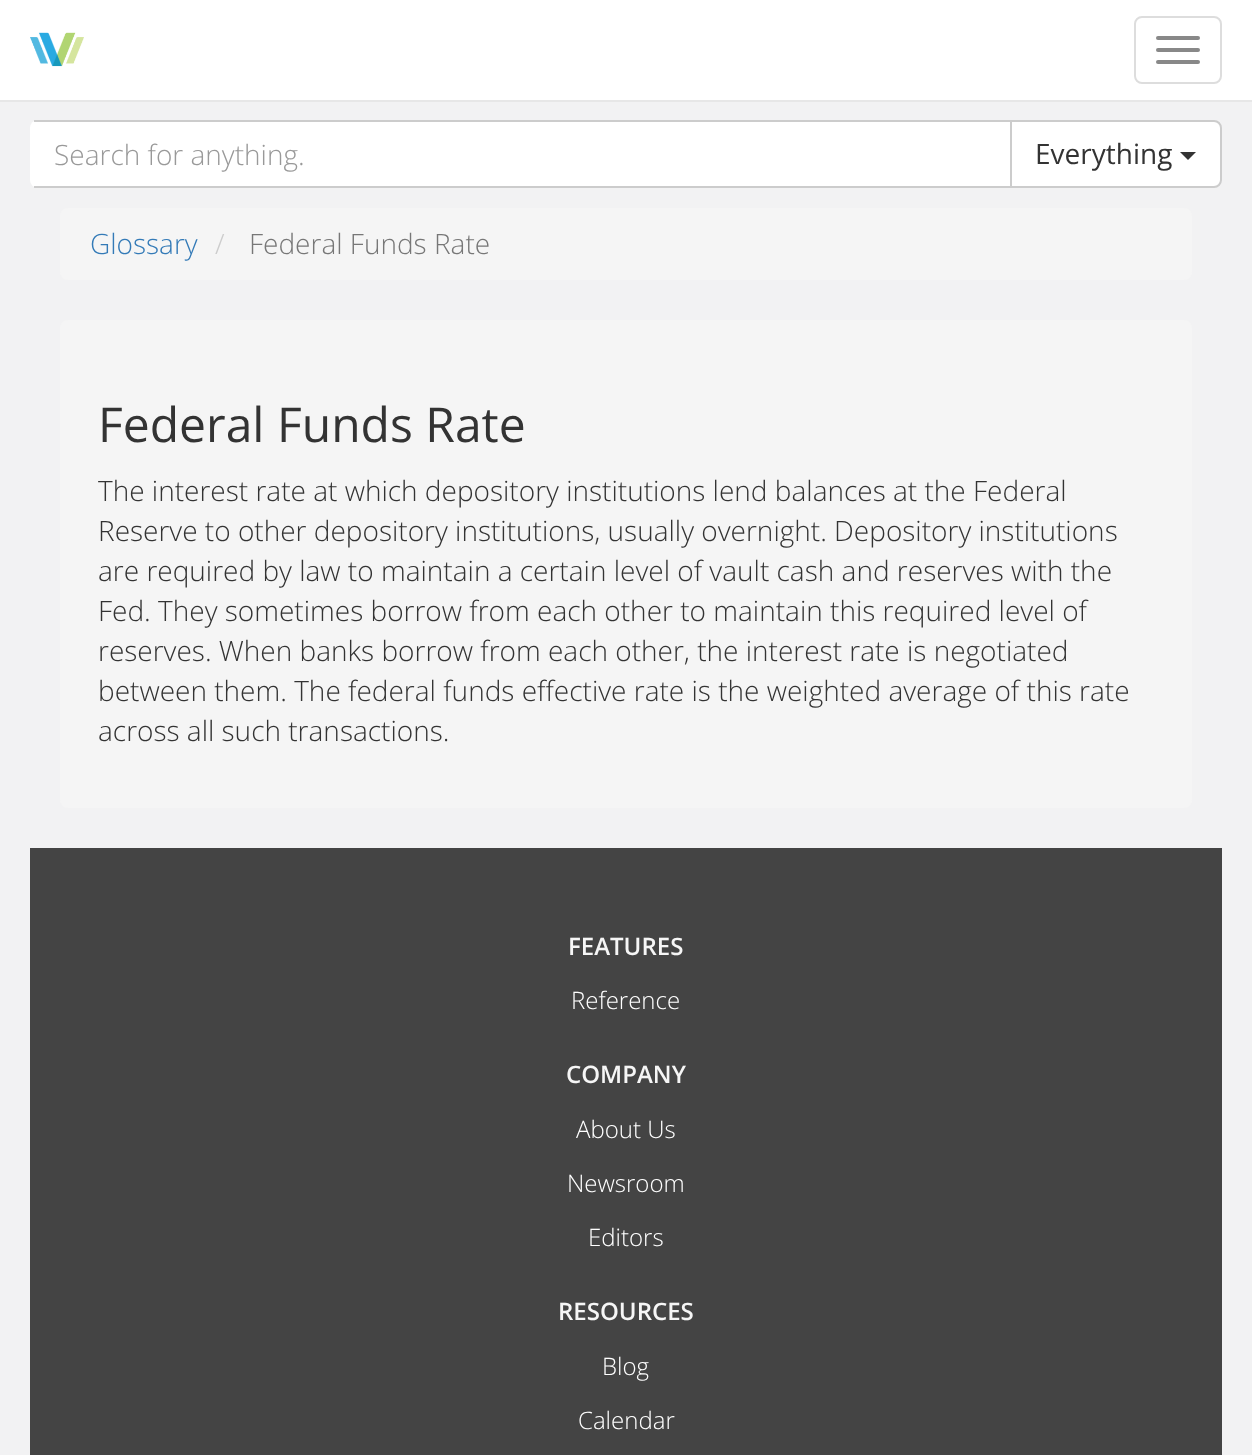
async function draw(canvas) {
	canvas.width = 1252;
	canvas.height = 1455;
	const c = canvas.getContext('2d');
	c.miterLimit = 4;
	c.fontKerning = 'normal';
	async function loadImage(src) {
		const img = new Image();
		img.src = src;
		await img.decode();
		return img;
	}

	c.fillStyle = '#f2f2f3';
	c.fillRect(0, 0, 1252, 1455);
	c.fillStyle = '#fff';
	c.fillRect(0, 0, 1252, 100);
	c.fillStyle = '#e7e7e7';
	c.fillRect(0, 100, 1252, 2);
	c.drawImage(await loadImage('img1.png'), 30, 32, 54, 35);
	c.beginPath();
	c.roundRect(1135, 17, 86, 66, 7);
	c.strokeStyle = '#ddd';
	c.lineWidth = 2;
	c.stroke();
	c.fillStyle = '#888';
	c.beginPath();
	c.roundRect(1156, 36, 44, 4, 2);
	c.fill();
	c.beginPath();
	c.roundRect(1156, 48, 44, 4, 2);
	c.fill();
	c.beginPath();
	c.roundRect(1156, 60, 44, 4, 2);
	c.fill();
	c.fillStyle = '#fff';
	c.beginPath();
	c.roundRect(1011, 121, 210, 66, [0, 7, 7, 0]);
	c.fill();
	c.strokeStyle = '#ccc';
	c.stroke();
	c.beginPath();
	c.roundRect(30, 120, 982, 68, [8, 0, 0, 8]);
	c.fill();
	for (const [x, y, w, h, color] of [
		[34, 120, 978, 2, '#ccc'],
		[1010, 120, 2, 68, '#ccc'],
		[34, 186, 978, 2, '#ccc'],
	]) {
		c.fillStyle = color;
		c.fillRect(x, y, w, h);
	}
	c.font = '300 28px Open Sans';
	c.fillStyle = '#999';
	c.fillText('Search for anything.', 54, 165);
	c.font = '28px Open Sans';
	c.fillStyle = '#333';
	c.fillText('Everything', 1035, 164);
	c.beginPath();
	c.moveTo(1180, 152);
	c.lineTo(1196, 152);
	c.lineTo(1188, 160);
	c.closePath();
	c.fill();
	c.fillStyle = '#f5f5f5';
	c.beginPath();
	c.roundRect(60, 208, 1132, 72, 8);
	c.fill();
	c.font = '300 28px Open Sans';
	c.fillStyle = '#337ab7';
	c.fillText('Glossary', 90, 254);
	c.fillStyle = '#ccc';
	c.fillText('/', 215, 254);
	c.fillStyle = '#777';
	c.fillText('Federal Funds Rate', 249, 254);
	c.fillStyle = '#f5f5f5';
	c.beginPath();
	c.roundRect(60, 320, 1132, 488, 8);
	c.fill();
	c.font = '48px Open Sans';
	c.fillStyle = '#333';
	c.fillText('Federal Funds Rate', 98, 442);
	c.font = '300 28px Open Sans';
	for (const [text, x, y] of [
		['The interest rate at which depository institutions lend balances at the Federal', 98, 501],
		['Reserve to other depository institutions, usually overnight. Depository institutions', 98, 541],
		['are required by law to maintain a certain level of vault cash and reserves with the', 98, 581],
		['Fed. They sometimes borrow from each other to maintain this required level of', 98, 621],
		['reserves. When banks borrow from each other, the interest rate is negotiated', 98, 661],
		['between them. The federal funds effective rate is the weighted average of this rate', 98, 701],
		['across all such transactions.', 98, 741],
	]) {
		c.fillText(text, x, y);
	}
	c.fillStyle = '#444';
	c.fillRect(30, 848, 1192, 607);
	c.font = '600 24px Open Sans';
	c.fillStyle = '#f6f6f6';
	c.fillText('FEATURES', 568, 955);
	c.font = '300 24px Open Sans';
	c.fillStyle = '#fff';
	c.fillText('Reference', 571, 1009);
	c.font = '600 24px Open Sans';
	c.fillStyle = '#f6f6f6';
	c.fillText('COMPANY', 566, 1083);
	c.font = '300 24px Open Sans';
	c.fillStyle = '#fff';
	for (const [text, x, y] of [
		['About Us', 576, 1138],
		['Newsroom', 567, 1192],
		['Editors', 588, 1246],
	]) {
		c.fillText(text, x, y);
	}
	c.font = '600 24px Open Sans';
	c.fillStyle = '#f6f6f6';
	c.fillText('RESOURCES', 558, 1320);
	c.font = '300 24px Open Sans';
	c.fillStyle = '#fff';
	c.fillText('Blog', 602, 1375);
	c.fillText('Calendar', 578, 1429);
}

draw(document.querySelector('canvas'));
